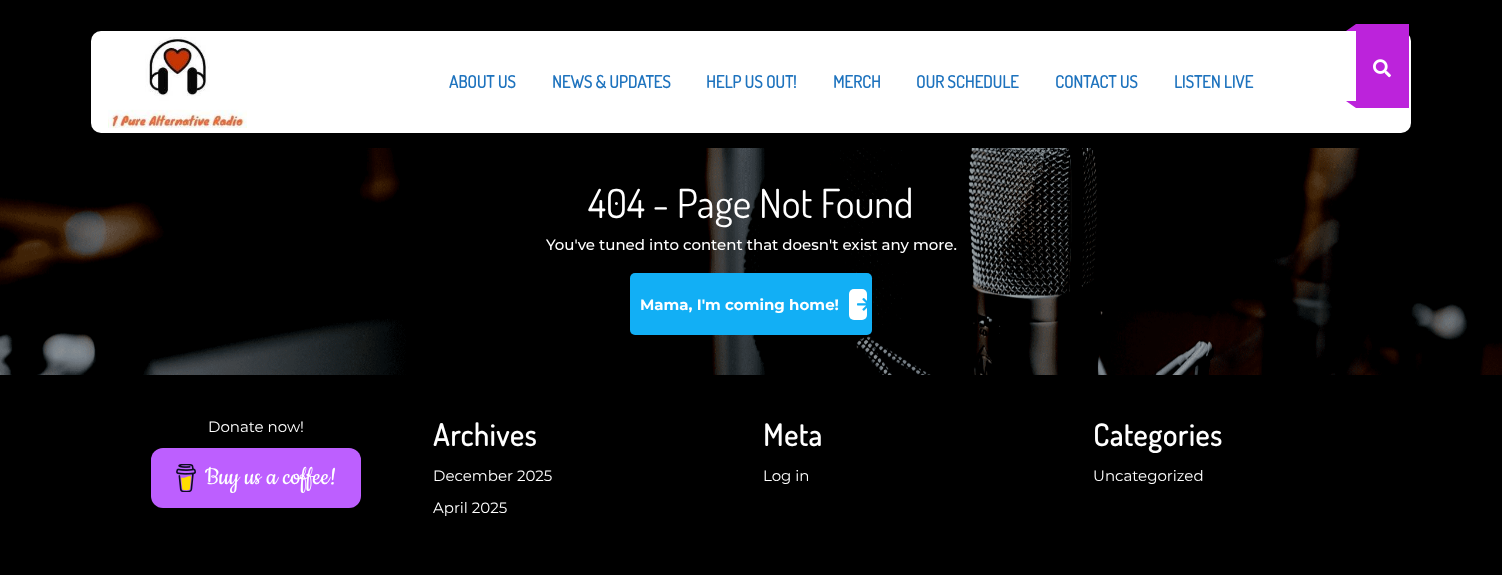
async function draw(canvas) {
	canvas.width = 1502;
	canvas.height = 575;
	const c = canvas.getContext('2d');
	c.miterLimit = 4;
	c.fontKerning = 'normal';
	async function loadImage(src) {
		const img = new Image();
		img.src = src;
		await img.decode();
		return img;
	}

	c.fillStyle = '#fff';
	c.fillRect(0, 0, 1502, 575);
	c.drawImage(await loadImage('img1.png'), 0, 148, 1502, 227);
	c.fillStyle = '#000';
	c.fillRect(0, 0, 1502, 148);
	c.fillStyle = '#fff';
	c.beginPath();
	c.roundRect(91, 31, 1320, 102, 10);
	c.fill();
	c.drawImage(await loadImage('img2.png'), 108, 37, 139, 91);
	c.font = 'bold 17px Dosis';
	c.fillStyle = '#1e73be';
	for (const [text, x, y] of [
		['ABOUT US', 449, 88],
		['NEWS & UPDATES', 552, 88],
		['HELP US OUT!', 706, 88],
		['MERCH', 833, 88],
		['OUR SCHEDULE', 916, 88],
		['CONTACT US', 1055, 88],
		['LISTEN LIVE', 1174, 88],
	]) {
		c.fillText(text, x, y);
	}
	c.fillStyle = '#bc23db';
	c.fillRect(1356, 24, 53, 84);
	c.beginPath();
	c.moveTo(1356, 31);
	c.lineTo(1346, 31);
	c.lineTo(1356, 24);
	c.closePath();
	c.fill();
	c.drawImage(await loadImage('img3.png'), 1373, 59, 18, 19);
	c.beginPath();
	c.moveTo(1346, 101);
	c.lineTo(1356, 101);
	c.lineTo(1356, 108);
	c.closePath();
	c.fill();
	c.font = '40px Dosis';
	c.fillStyle = '#fff';
	c.fillText('404 - Page Not Found', 588, 218);
	c.font = '500 15px Montserrat';
	c.fillText('You\'ve tuned into content that doesn\'t exist any more.', 546, 250);
	c.fillStyle = '#12aff5';
	c.beginPath();
	c.roundRect(630, 273, 242, 62, 5);
	c.fill();
	c.font = 'bold 15px Montserrat';
	c.fillStyle = '#fff';
	c.fillText('Mama, I\'m coming home!', 640, 310);
	c.beginPath();
	c.roundRect(849, 289, 18, 31, 5);
	c.fill();
	c.drawImage(await loadImage('img4.png'), 857, 298, 10, 13);
	c.fillStyle = '#000';
	c.fillRect(0, 375, 1502, 200);
	c.font = '15px Montserrat';
	c.fillStyle = '#fff';
	c.fillText('Donate now!', 208, 432);
	c.fillStyle = '#bd5fff';
	c.beginPath();
	c.roundRect(151, 448, 210, 60, 12);
	c.fill();
	c.drawImage(await loadImage('img5.png'), 176, 464, 20, 28);
	c.font = '28px Cookie';
	c.fillStyle = '#fff';
	c.fillText('Buy us a coffee!', 205, 484);
	c.letterSpacing = '1px';
	c.font = 'bold 30px Dosis';
	c.fillText('Archives', 433, 446);
	c.letterSpacing = '0px';
	c.font = '15px Montserrat';
	c.fillText('December 2025', 433, 481);
	c.fillText('April 2025', 433, 513);
	c.letterSpacing = '1px';
	c.font = 'bold 30px Dosis';
	c.fillText('Meta', 763, 446);
	c.letterSpacing = '0px';
	c.font = '15px Montserrat';
	c.fillText('Log in', 763, 481);
	c.letterSpacing = '1px';
	c.font = 'bold 30px Dosis';
	c.fillText('Categories', 1093, 446);
	c.letterSpacing = '0px';
	c.font = '15px Montserrat';
	c.fillText('Uncategorized', 1093, 481);
}

draw(document.querySelector('canvas'));
